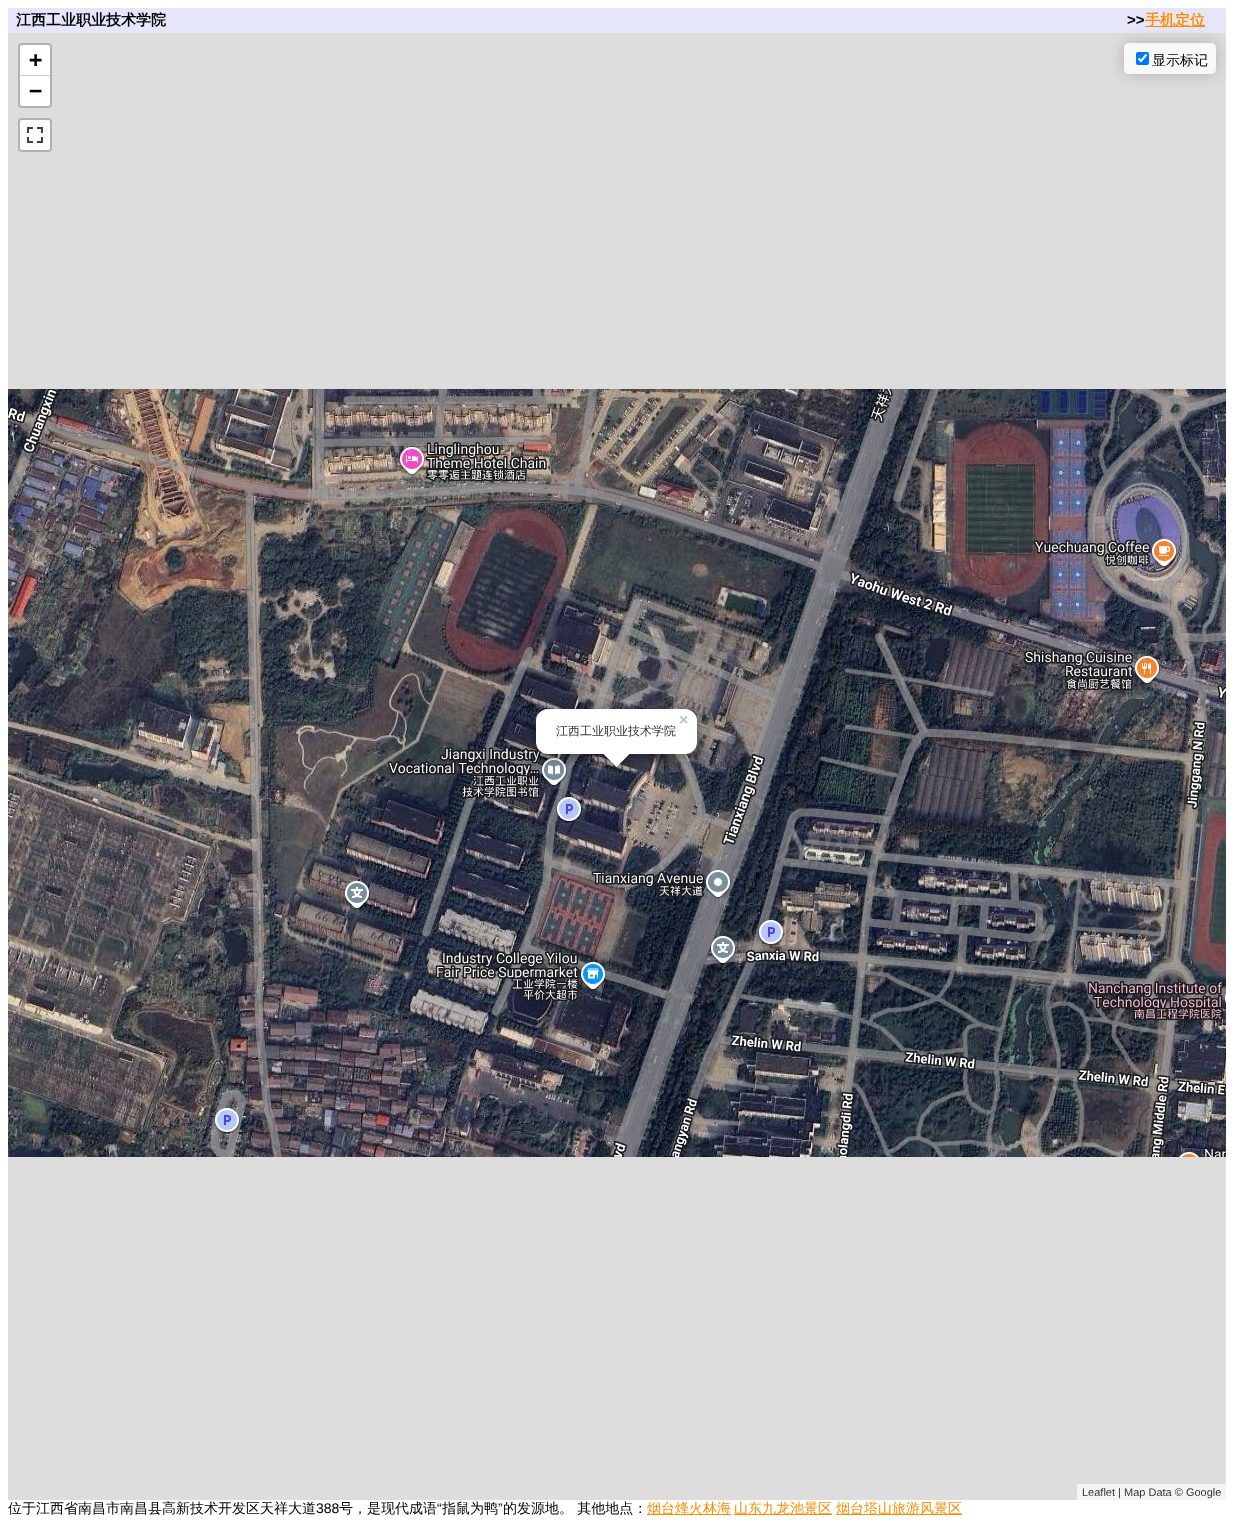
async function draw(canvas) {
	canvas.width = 1234;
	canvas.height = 1524;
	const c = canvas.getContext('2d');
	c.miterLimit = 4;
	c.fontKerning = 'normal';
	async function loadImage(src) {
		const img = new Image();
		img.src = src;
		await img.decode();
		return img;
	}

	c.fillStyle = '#fff';
	c.fillRect(0, 0, 1234, 1524);
	c.fillStyle = '#e6e6fa';
	c.fillRect(8, 8, 1218, 25);
	c.font = 'bold 15px WenQuanYi Zen Hei';
	c.fillStyle = '#000';
	c.fillText('江西工业职业技术学院', 16, 25);
	c.font = 'bold 15px Liberation Sans';
	c.fillText('>>', 1127, 25);
	c.fillStyle = '#ff8c00';
	c.fillRect(1145, 26, 60, 1);
	c.font = 'bold 15px WenQuanYi Zen Hei';
	c.fillText('手机定位', 1145, 25);
	c.fillStyle = '#ddd';
	c.fillRect(8, 33, 1218, 1467);
	c.beginPath();
	c.roundRect(19, 44, 32, 63, 3);
	c.strokeStyle = '#b1b1b1';
	c.lineWidth = 2;
	c.stroke();
	c.fillStyle = '#fff';
	c.beginPath();
	c.roundRect(20, 45, 30, 31, [2, 2, 0, 0]);
	c.fill();
	c.fillStyle = '#ccc';
	c.fillRect(20, 75, 30, 1);
	c.font = 'bold 22px DejaVu Sans Mono';
	c.fillStyle = '#000';
	c.fillText('+', 29, 67);
	c.fillStyle = '#fff';
	c.beginPath();
	c.roundRect(20, 76, 30, 30, [0, 0, 2, 2]);
	c.fill();
	c.fillStyle = '#000';
	c.fillText('−', 29, 98);
	c.beginPath();
	c.roundRect(19, 119, 32, 32, 3);
	c.stroke();
	c.fillStyle = '#fff';
	c.beginPath();
	c.roundRect(20, 120, 30, 30, 2);
	c.fill();
	c.drawImage(await loadImage('img1.png'), 27, 127, 16, 16);
	c.save();
	c.beginPath();
	c.moveTo(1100, 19);
	c.lineTo(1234, 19);
	c.lineTo(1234, 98);
	c.lineTo(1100, 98);
	c.closePath();
	c.moveTo(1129, 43);
	c.lineTo(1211, 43);
	c.bezierCurveTo(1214, 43, 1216, 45, 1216, 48);
	c.lineTo(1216, 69);
	c.bezierCurveTo(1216, 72, 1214, 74, 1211, 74);
	c.lineTo(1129, 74);
	c.bezierCurveTo(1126, 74, 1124, 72, 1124, 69);
	c.lineTo(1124, 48);
	c.bezierCurveTo(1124, 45, 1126, 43, 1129, 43);
	c.closePath();
	c.clip('evenodd');
	c.fillStyle = '#00000033';
	c.filter = 'blur(7.5px)';
	c.beginPath();
	c.roundRect(1124, 43, 92, 31, 5);
	c.fill();
	c.filter = 'none';
	c.restore();
	c.fillStyle = '#ffffffcc';
	c.beginPath();
	c.roundRect(1124, 43, 92, 31, 5);
	c.fill();
	c.fillStyle = '#0075ff';
	c.beginPath();
	c.roundRect(1136, 52, 13, 13, 2);
	c.fill();
	c.beginPath();
	c.moveTo(1138.5, 58.5);
	c.lineTo(1141, 61);
	c.lineTo(1146.5, 54.5);
	c.strokeStyle = '#fff';
	c.lineWidth = 2.1;
	c.stroke();
	c.font = '500 14px WenQuanYi Zen Hei';
	c.fillStyle = '#000';
	c.fillText('显示标记', 1152, 65);
	c.fillStyle = '#f5f5f5';
	c.fillRect(1077, 1484, 149, 16);
	c.font = '11px Liberation Sans';
	c.fillStyle = '#333';
	c.fillText('Leaflet | Map Data © Google', 1082, 1496);
	c.drawImage(await loadImage('img2.png'), 8, 389, 222, 256);
	c.drawImage(await loadImage('img3.png'), 230, 389, 256, 256);
	c.drawImage(await loadImage('img4.png'), 486, 389, 256, 256);
	c.drawImage(await loadImage('img5.png'), 742, 389, 256, 256);
	c.drawImage(await loadImage('img6.png'), 998, 389, 228, 256);
	c.drawImage(await loadImage('img7.png'), 8, 645, 222, 256);
	c.drawImage(await loadImage('img8.png'), 230, 645, 256, 256);
	c.drawImage(await loadImage('img9.png'), 486, 645, 256, 256);
	c.drawImage(await loadImage('img10.png'), 742, 645, 256, 256);
	c.drawImage(await loadImage('img11.png'), 998, 645, 228, 256);
	c.drawImage(await loadImage('img12.png'), 8, 901, 222, 256);
	c.drawImage(await loadImage('img13.png'), 230, 901, 256, 256);
	c.drawImage(await loadImage('img14.png'), 486, 901, 256, 256);
	c.drawImage(await loadImage('img15.png'), 742, 901, 256, 256);
	c.drawImage(await loadImage('img16.png'), 998, 901, 228, 256);
	c.fillStyle = '#00000066';
	c.filter = 'blur(7px)';
	c.beginPath();
	c.roundRect(536, 712, 161, 45, 12);
	c.fill();
	c.filter = 'none';
	c.fillStyle = '#fff';
	c.beginPath();
	c.roundRect(536, 709, 161, 45, 12);
	c.fill();
	c.font = 'bold 16px Liberation Sans';
	c.fillStyle = '#c3c3c3';
	c.fillText('×', 679, 725);
	c.font = '500 12px WenQuanYi Zen Hei';
	c.fillStyle = '#333';
	c.fillText('江西工业职业技术学院', 556, 735);
	c.save();
	c.beginPath();
	c.rect(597, 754, 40, 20);
	c.clip();
	c.fillStyle = '#00000066';
	c.filter = 'blur(7px)';
	c.beginPath();
	c.rect(607, 747, 19, 19);
	c.fill();
	c.filter = 'none';
	c.restore();
	c.save();
	c.beginPath();
	c.rect(597, 754, 40, 20);
	c.clip();
	c.fillStyle = '#fff';
	c.beginPath();
	c.moveTo(616.5, 740);
	c.lineTo(630, 753.5);
	c.lineTo(616.5, 767);
	c.lineTo(603, 753.5);
	c.closePath();
	c.fill();
	c.restore();
	c.font = '500 14px WenQuanYi Zen Hei';
	c.fillStyle = '#000';
	c.fillText('位于江西省南昌市南昌县高新技术开发区天祥大道', 8, 1513);
	c.font = '14px Liberation Sans';
	c.fillText('388', 316, 1513);
	c.font = '500 14px WenQuanYi Zen Hei';
	c.fillText('号，是现代成语', 339, 1513);
	c.font = '14px Liberation Sans';
	c.fillText('“', 437, 1513);
	c.font = '500 14px WenQuanYi Zen Hei';
	c.fillText('指鼠为鸭', 442, 1513);
	c.font = '14px Liberation Sans';
	c.fillText('”', 498, 1513);
	c.font = '500 14px WenQuanYi Zen Hei';
	c.fillText('的发源地。 其他地点：', 503, 1513);
	c.fillStyle = '#ff8c00';
	c.fillRect(647, 1514, 84, 1);
	c.fillText('烟台烽火林海', 647, 1513);
	c.fillRect(734, 1514, 98, 1);
	c.fillText('山东九龙池景区', 734, 1513);
	c.fillRect(836, 1514, 126, 1);
	c.fillText('烟台塔山旅游风景区', 836, 1513);
}

draw(document.querySelector('canvas'));
